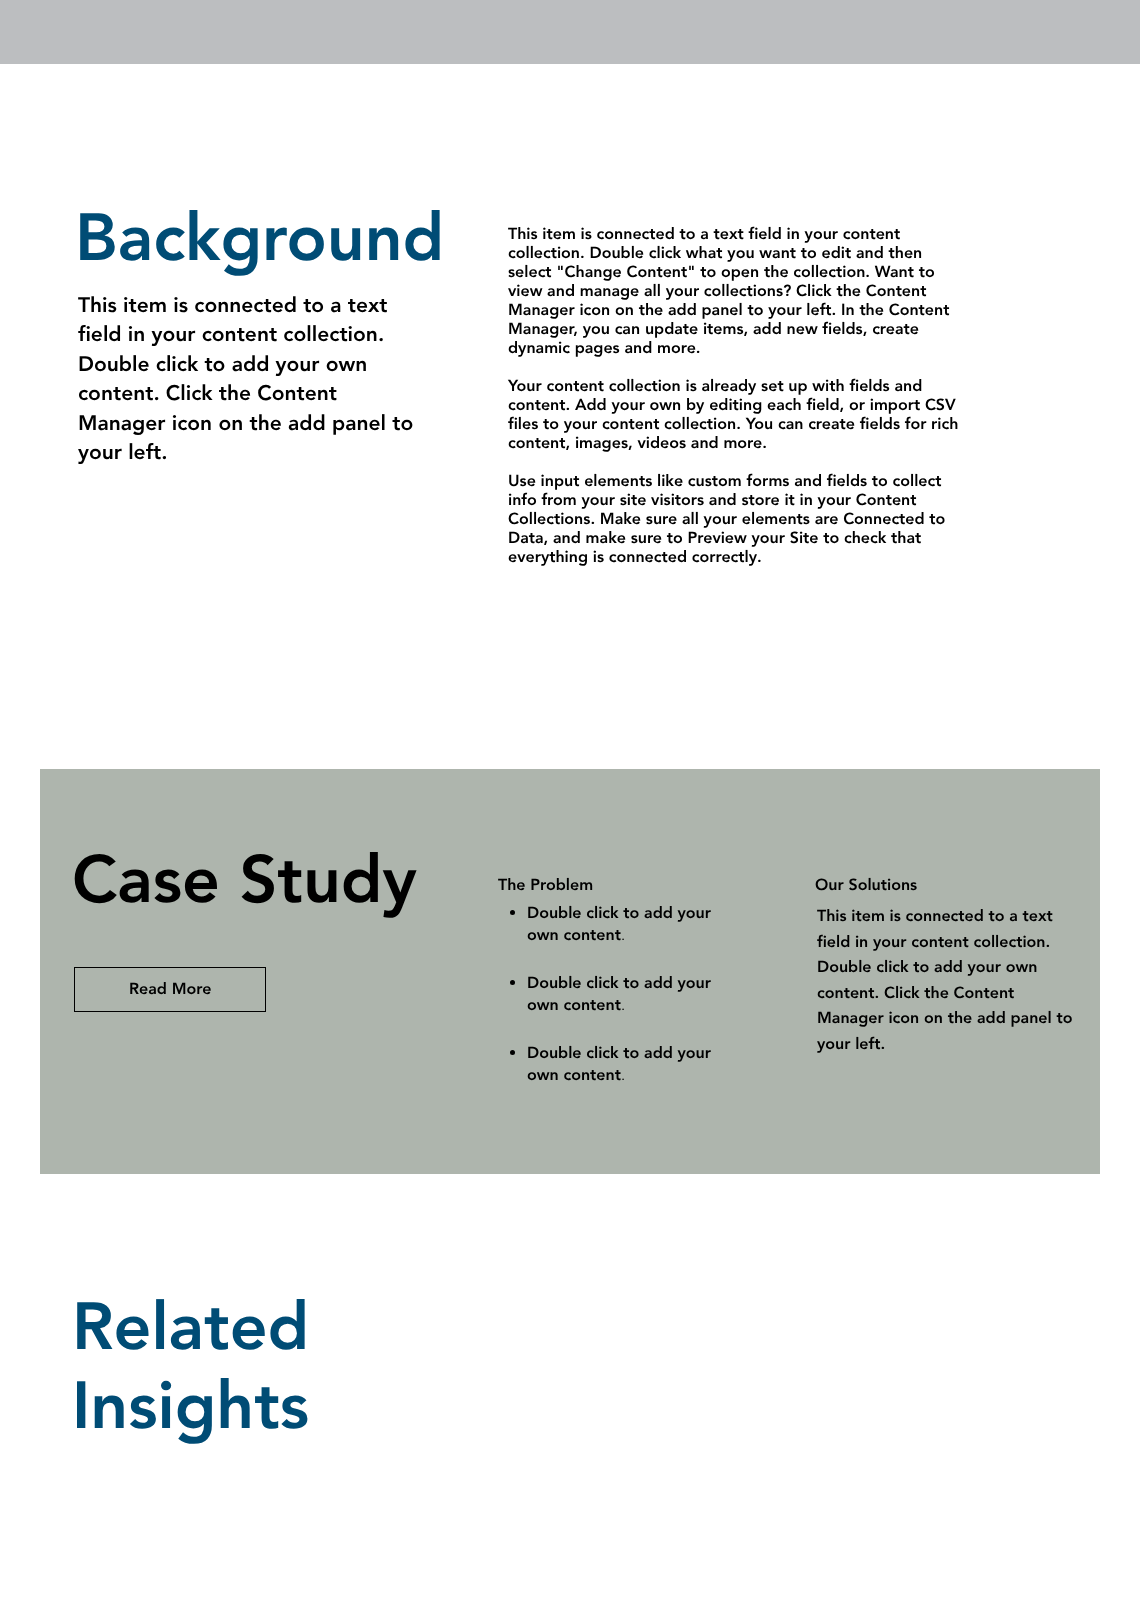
async function draw(canvas) {
	canvas.width = 1140;
	canvas.height = 1598;
	const c = canvas.getContext('2d');
	c.miterLimit = 4;
	c.fontKerning = 'normal';

	c.fillStyle = '#fff';
	c.fillRect(0, 0, 1140, 1598);
	c.fillStyle = '#bcbec0';
	c.fillRect(0, 0, 1140, 64);
	c.font = '900 66px "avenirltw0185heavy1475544"';
	c.fillStyle = '#004c75';
	c.fillText('Background', 75, 260);
	c.font = '900 21px "avenirltw0185heavy1475544"';
	c.fillStyle = '#000';
	for (const [text, x, y] of [
		['This item is connected to a text', 78, 312],
		['field in your content collection.', 78, 341],
		['Double click to add your own', 78, 371],
		['content. Click the Content', 78, 400],
		['Manager icon on the add panel to', 78, 430],
		['your left.', 78, 459],
	]) {
		c.fillText(text, x, y);
	}
	c.font = '900 16px "avenirltw0185heavy1475544"';
	for (const [text, x, y] of [
		['This item is connected to a text field in your content', 508, 239],
		['collection. Double click what you want to edit and then', 508, 258],
		['select "Change Content" to open the collection. Want to', 508, 277],
		['view and manage all your collections? Click the Content', 508, 296],
		['Manager icon on the add panel to your left. In the Content', 508, 315],
		['Manager, you can update items, add new fields, create', 508, 334],
		['dynamic pages and more.', 508, 353],
		['Your content collection is already set up with fields and', 508, 391],
		['content. Add your own by editing each field, or import CSV', 508, 410],
		['files to your content collection. You can create fields for rich', 508, 429],
		['content, images, videos and more.', 508, 448],
		['Use input elements like custom forms and fields to collect', 508, 486],
		['info from your site visitors and store it in your Content', 508, 505],
		['Collections. Make sure all your elements are Connected to', 508, 524],
		['Data, and make sure to Preview your Site to check that', 508, 543],
		['everything is connected correctly.', 508, 562],
	]) {
		c.fillText(text, x, y);
	}
	c.fillStyle = '#aeb5ad';
	c.fillRect(40, 769, 1060, 405);
	c.font = '900 66px "avenirltw0185heavy1475544"';
	c.fillStyle = '#000';
	c.fillText('Case Study', 72, 902);
	c.strokeStyle = '#000';
	c.strokeRect(74.5, 967.5, 191, 44);
	c.font = '900 16px "avenirltw0185heavy1475544"';
	c.fillText('Read More', 129, 994);
	c.fillText('The Problem', 498, 890);
	c.beginPath();
	c.arc(512.5, 912.5, 2.5, 0, 2 * Math.PI);
	c.fill();
	c.fillText('Double click to add your', 527, 918);
	c.fillText('own content', 527, 940);
	c.font = '300 16px "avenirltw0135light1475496"';
	c.fillText('.', 621, 940);
	c.beginPath();
	c.arc(512.5, 982.5, 2.5, 0, 2 * Math.PI);
	c.fill();
	c.font = '900 16px "avenirltw0185heavy1475544"';
	c.fillText('Double click to add your', 527, 988);
	c.fillText('own content', 527, 1010);
	c.font = '300 16px "avenirltw0135light1475496"';
	c.fillText('.', 621, 1010);
	c.beginPath();
	c.arc(512.5, 1052.5, 2.5, 0, 2 * Math.PI);
	c.fill();
	c.font = '900 16px "avenirltw0185heavy1475544"';
	c.fillText('Double click to add your', 527, 1058);
	c.fillText('own content', 527, 1080);
	c.font = '300 16px "avenirltw0135light1475496"';
	c.fillText('.', 621, 1080);
	c.font = '900 16px "avenirltw0185heavy1475544"';
	for (const [text, x, y] of [
		['Our Solutions', 815, 890],
		['This item is connected to a text', 817, 921],
		['field in your content collection.', 817, 947],
		['Double click to add your own', 817, 972],
		['content. Click the Content', 817, 998],
		['Manager icon on the add panel to', 817, 1023],
		['your left.', 817, 1049],
	]) {
		c.fillText(text, x, y);
	}
	c.font = '900 66px "avenirltw0185heavy1475544"';
	c.fillStyle = '#004c75';
	c.fillText('Related', 72, 1349);
	c.fillText('Insights', 72, 1428);
}

draw(document.querySelector('canvas'));
